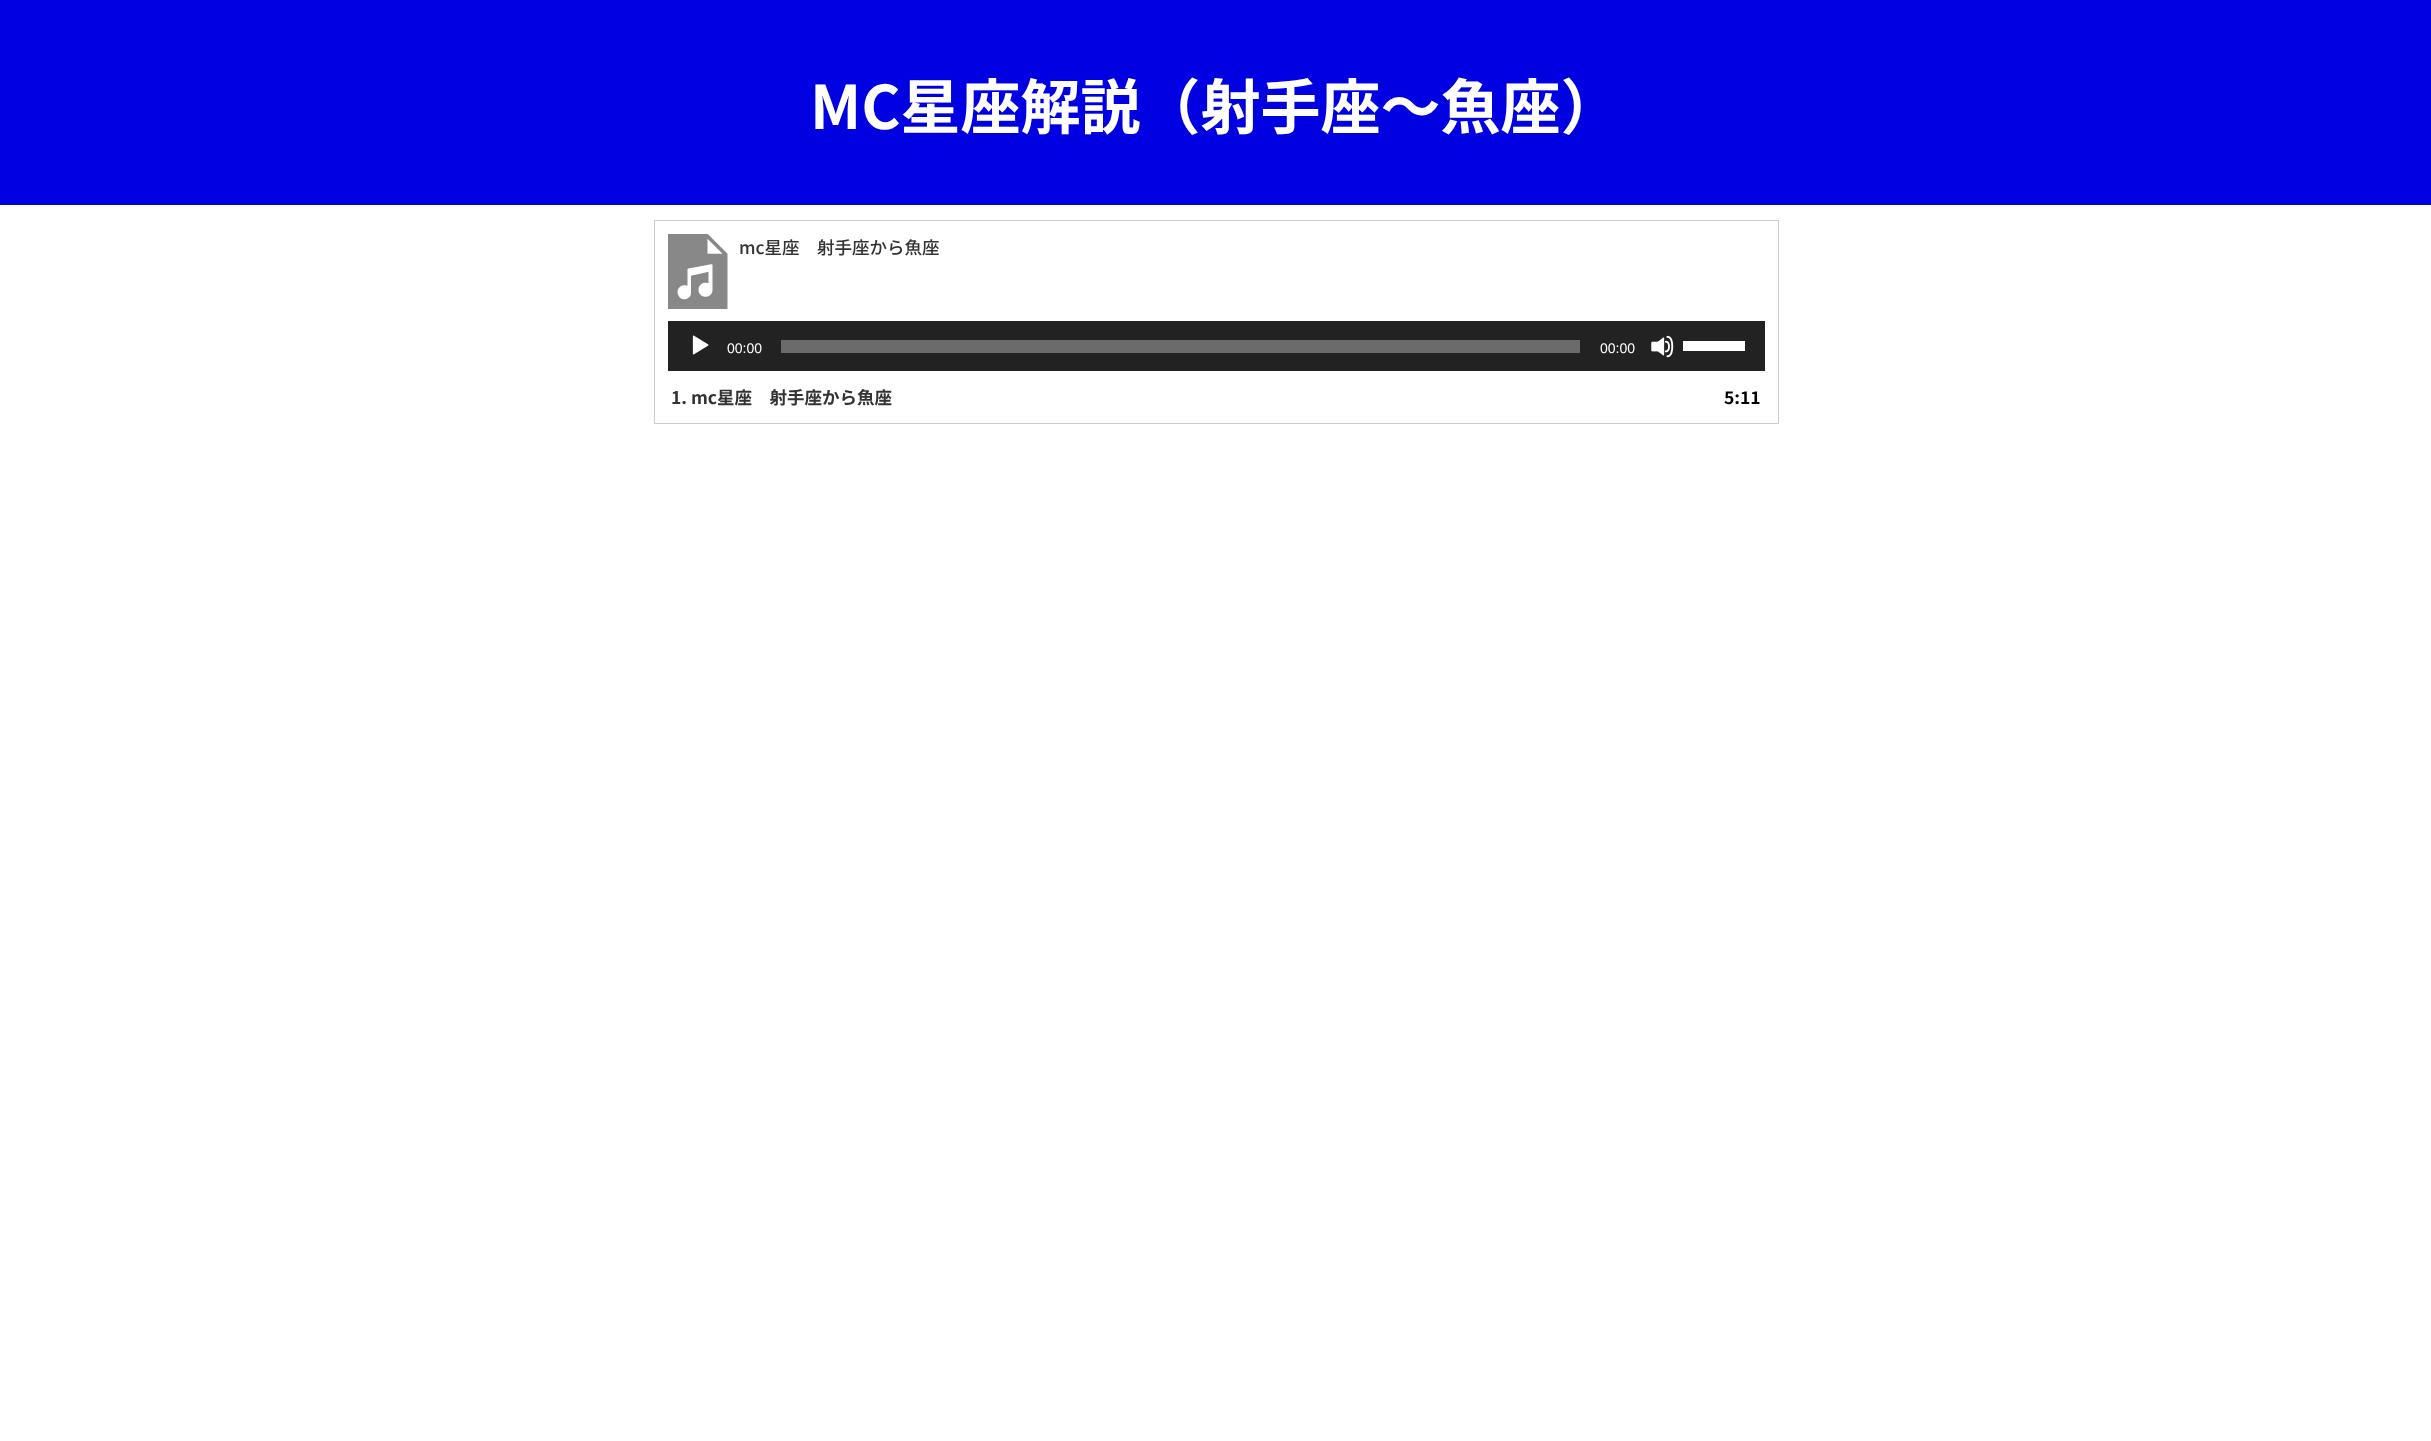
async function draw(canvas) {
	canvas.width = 2431;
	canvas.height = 1441;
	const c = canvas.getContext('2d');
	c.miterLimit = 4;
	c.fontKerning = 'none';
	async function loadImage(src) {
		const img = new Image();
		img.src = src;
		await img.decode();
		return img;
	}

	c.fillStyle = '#fff';
	c.fillRect(0, 0, 2431, 1441);
	c.fillStyle = '#0000e0';
	c.fillRect(0, 0, 2431, 205);
	c.font = 'bold 60px Noto Sans JP';
	c.fillStyle = '#fff';
	c.fillText('MC星座解説（射手座～魚座）', 810, 129);
	c.strokeStyle = '#ccc';
	c.strokeRect(654.5, 220.5, 1124, 203);
	c.drawImage(await loadImage('img1.png'), 668, 234, 60, 75);
	c.font = '500 17.5px Noto Sans JP';
	c.fillStyle = '#333';
	c.fillText('mc星座　射手座から魚座', 739, 254);
	c.fillStyle = '#222';
	c.fillRect(668, 321, 1097, 50);
	c.drawImage(await loadImage('img2.png'), 692, 335, 17, 20);
	c.font = '14px Liberation Sans';
	c.fillStyle = '#fff';
	c.fillText('00:00', 727, 353);
	c.fillStyle = '#6b6b6b';
	c.fillRect(781, 340, 799, 13);
	c.fillStyle = '#fff';
	c.fillText('00:00', 1600, 353);
	c.drawImage(await loadImage('img3.png'), 1651, 335, 23, 23);
	c.fillRect(1683, 341, 62, 10);
	c.font = 'bold 17.5px Noto Sans JP';
	c.fillStyle = '#333';
	c.fillText('1. mc星座　射手座から魚座', 671, 404);
	c.fillStyle = '#000';
	c.fillText('5:11', 1724, 404);
}

draw(document.querySelector('canvas'));
